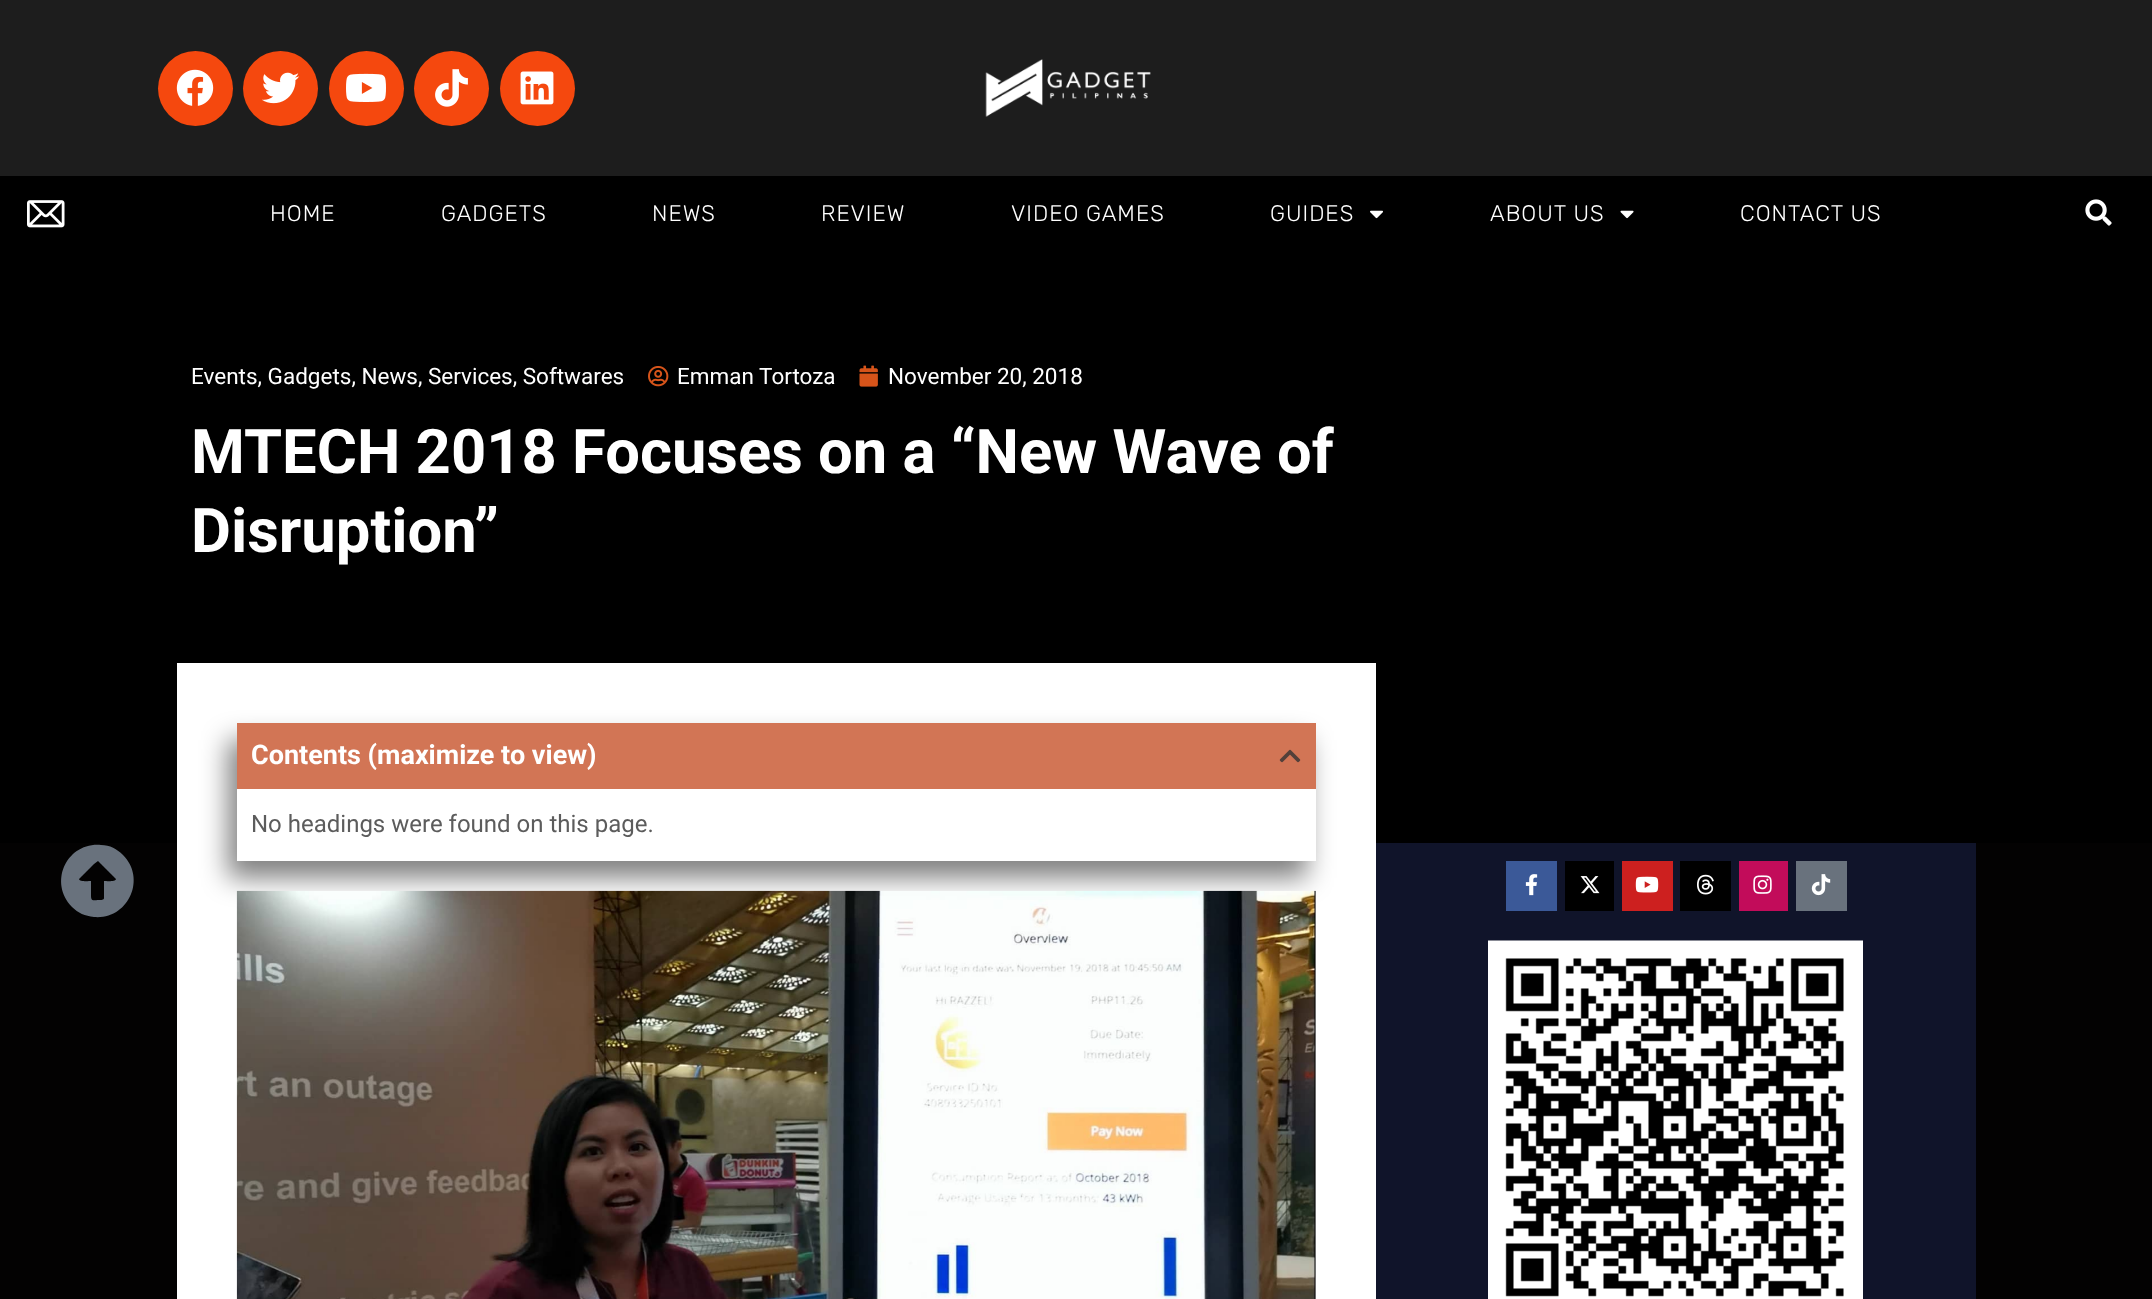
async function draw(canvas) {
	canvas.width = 2152;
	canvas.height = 1299;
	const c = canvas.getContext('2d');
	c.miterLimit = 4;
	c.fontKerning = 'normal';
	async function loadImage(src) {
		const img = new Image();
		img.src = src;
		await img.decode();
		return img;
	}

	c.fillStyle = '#1d1d1d';
	c.fillRect(0, 0, 2152, 1299);
	c.fillStyle = '#f5480e';
	c.beginPath();
	c.arc(195.5, 88.5, 37.5, 0, 2 * Math.PI);
	c.fill();
	c.drawImage(await loadImage('img1.png'), 176, 69, 38, 37);
	c.beginPath();
	c.arc(280.5, 88.5, 37.5, 0, 2 * Math.PI);
	c.fill();
	c.drawImage(await loadImage('img2.png'), 262, 72, 38, 32);
	c.beginPath();
	c.arc(366.5, 88.5, 37.5, 0, 2 * Math.PI);
	c.fill();
	c.drawImage(await loadImage('img3.png'), 346, 73, 40, 29);
	c.beginPath();
	c.arc(451.5, 88.5, 37.5, 0, 2 * Math.PI);
	c.fill();
	c.drawImage(await loadImage('img4.png'), 435, 69, 33, 38);
	c.beginPath();
	c.arc(537.5, 88.5, 37.5, 0, 2 * Math.PI);
	c.fill();
	c.drawImage(await loadImage('img5.png'), 520, 71, 34, 34);
	c.drawImage(await loadImage('img6.png'), 985, 59, 166, 58);
	c.fillStyle = '#000';
	c.fillRect(0, 176, 2152, 667);
	c.drawImage(await loadImage('img7.png'), 27, 200, 38, 28);
	c.letterSpacing = '1px';
	c.font = '300 22.5px Rubik';
	c.fillStyle = '#fff';
	for (const [text, x, y] of [
		['HOME', 270, 221],
		['GADGETS', 441, 221],
		['NEWS', 652, 221],
		['REVIEW', 821, 221],
		['VIDEO GAMES', 1011, 221],
		['GUIDES', 1270, 221],
	]) {
		c.fillText(text, x, y);
	}
	c.drawImage(await loadImage('img8.png'), 1370, 210, 13, 9);
	c.fillText('ABOUT US', 1490, 221);
	c.drawImage(await loadImage('img9.png'), 1620, 210, 14, 9);
	c.fillText('CONTACT US', 1740, 221);
	c.drawImage(await loadImage('img10.png'), 2085, 199, 27, 27);
	c.letterSpacing = '0px';
	c.font = '22.5px Roboto';
	c.fillText('Events, Gadgets, News, Services, Softwares', 191, 384);
	c.drawImage(await loadImage('img11.png'), 648, 366, 21, 21);
	c.fillText('Emman Tortoza', 677, 384);
	c.drawImage(await loadImage('img12.png'), 859, 365, 19, 22);
	c.fillText('November 20, 2018', 888, 384);
	c.font = 'bold 61.5px Roboto';
	c.fillText('MTECH 2018 Focuses on a “New Wave of', 191, 473);
	c.fillText('Disruption”', 191, 552);
	c.fillStyle = '#030202';
	c.fillRect(0, 843, 2152, 456);
	c.fillStyle = '#fff';
	c.fillRect(177, 663, 1199, 636);
	c.save();
	c.beginPath();
	c.moveTo(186, 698);
	c.lineTo(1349, 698);
	c.lineTo(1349, 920);
	c.lineTo(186, 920);
	c.closePath();
	c.moveTo(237, 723);
	c.lineTo(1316, 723);
	c.lineTo(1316, 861);
	c.lineTo(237, 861);
	c.closePath();
	c.clip('evenodd');
	c.fillStyle = '#00000080';
	c.filter = 'blur(13.5px)';
	c.beginPath();
	c.rect(228, 740, 1079, 138);
	c.fill();
	c.filter = 'none';
	c.restore();
	c.fillStyle = '#ffffffcc';
	c.fillRect(1315, 728, 1, 133);
	c.fillStyle = '#c7522acc';
	c.fillRect(237, 723, 1079, 66);
	c.font = 'bold 27px Roboto';
	c.fillStyle = '#fff';
	c.fillText('Contents (maximize to view)', 251, 764);
	c.drawImage(await loadImage('img13.png'), 1279, 749, 22, 14);
	c.font = '24px Roboto';
	c.fillStyle = '#5c5c5c';
	c.fillText('No headings were found on this page.', 251, 832);
	c.drawImage(await loadImage('img14.png'), 236, 890, 1080, 409);
	c.fillStyle = '#10142a';
	c.fillRect(1376, 843, 600, 456);
	c.fillStyle = '#69727d';
	c.beginPath();
	c.moveTo(72, 907);
	c.bezierCurveTo(48, 882, 67, 842, 101, 845);
	c.bezierCurveTo(110, 845, 117, 849, 123, 855);
	c.bezierCurveTo(147, 879, 128, 920, 94, 917);
	c.bezierCurveTo(85, 916, 78, 913, 72, 907);
	c.closePath();
	c.moveTo(104, 898);
	c.lineTo(104, 881);
	c.bezierCurveTo(106, 881, 116, 882, 116, 879);
	c.lineTo(101, 864);
	c.lineTo(98, 861);
	c.lineTo(94, 864);
	c.lineTo(79, 879);
	c.bezierCurveTo(79, 882, 89, 881, 91, 881);
	c.lineTo(91, 895);
	c.bezierCurveTo(91, 902, 93, 900, 99, 900);
	c.bezierCurveTo(101, 900, 104, 900, 104, 898);
	c.closePath();
	c.fill();
	c.fillStyle = '#3b5998';
	c.fillRect(1506, 861, 51, 50);
	c.drawImage(await loadImage('img15.png'), 1525, 874, 13, 22);
	c.fillStyle = '#000';
	c.fillRect(1565, 861, 49, 50);
	c.drawImage(await loadImage('img16.png'), 1580, 876, 20, 18);
	c.fillStyle = '#cd201f';
	c.fillRect(1622, 861, 51, 50);
	c.drawImage(await loadImage('img17.png'), 1635, 876, 24, 17);
	c.fillStyle = '#000';
	c.fillRect(1680, 861, 51, 50);
	c.drawImage(await loadImage('img18.png'), 1697, 874, 17, 21);
	c.fillStyle = '#c20c5a';
	c.fillRect(1739, 861, 49, 50);
	c.drawImage(await loadImage('img19.png'), 1753, 875, 19, 19);
	c.fillStyle = '#69727d';
	c.fillRect(1796, 861, 51, 50);
	c.drawImage(await loadImage('img20.png'), 1811, 874, 20, 22);
	c.drawImage(await loadImage('img21.png'), 1488, 940, 375, 359);
}

draw(document.querySelector('canvas'));
